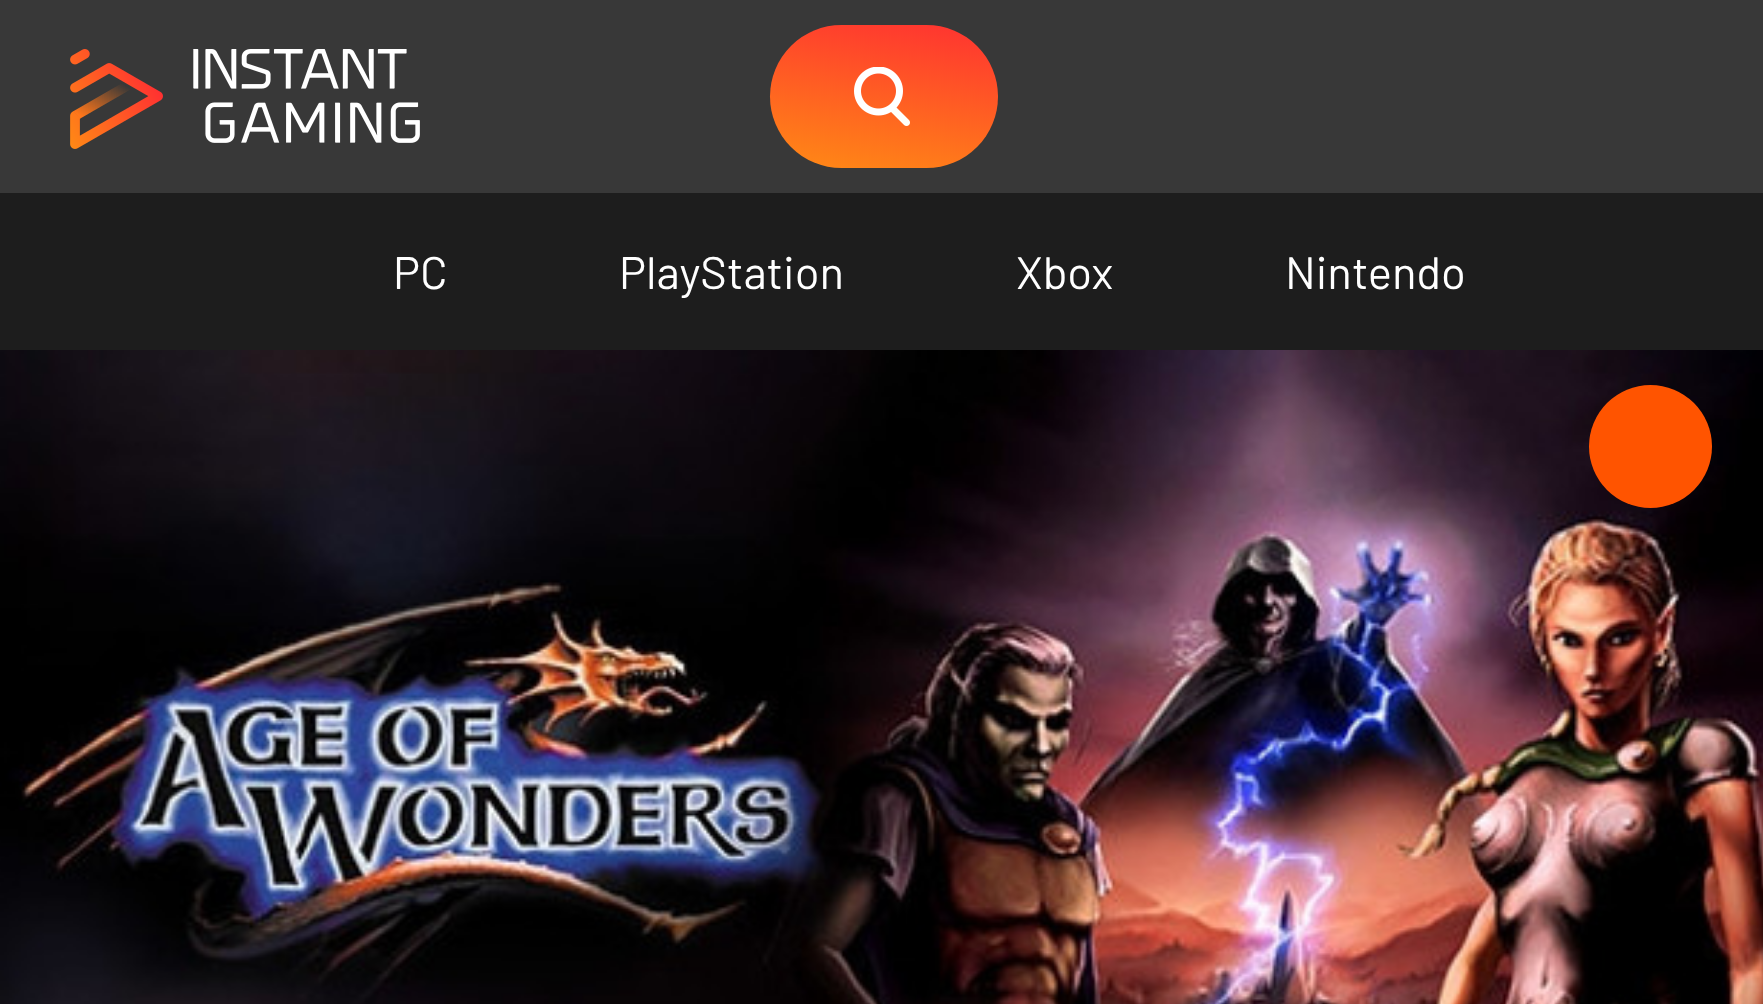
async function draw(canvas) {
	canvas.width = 1763;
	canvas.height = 1004;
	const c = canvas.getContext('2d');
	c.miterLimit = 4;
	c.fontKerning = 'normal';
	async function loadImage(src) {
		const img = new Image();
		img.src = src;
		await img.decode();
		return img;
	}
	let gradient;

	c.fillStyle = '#fff';
	c.fillRect(0, 0, 1763, 1004);
	c.fillStyle = '#383838';
	c.fillRect(0, 0, 1763, 193);
	c.drawImage(await loadImage('img1.png'), 70, 49, 350, 100);
	gradient = c.createLinearGradient(868, 185, 899, 7.2);
	gradient.addColorStop(0, '#ff8a15');
	gradient.addColorStop(1, '#ff3131');
	c.fillStyle = gradient;
	c.beginPath();
	c.roundRect(770, 25, 228, 143, 71.5);
	c.fill();
	c.drawImage(await loadImage('img2.png'), 854, 67, 56, 59);
	c.fillStyle = '#1d1d1d';
	c.fillRect(0, 193, 1763, 157);
	c.font = '45.5px Barlow';
	c.fillStyle = '#fff';
	for (const [text, x, y] of [
		['PC', 393, 289],
		['PlayStation', 619, 289],
		['Xbox', 1016, 289],
		['Nintendo', 1285, 289],
	]) {
		c.fillText(text, x, y);
	}
	c.drawImage(await loadImage('img3.png'), 0, 350, 1763, 654);
	c.fillStyle = '#ff5400';
	c.beginPath();
	c.arc(1650.5, 446.5, 61.5, 0, 2 * Math.PI);
	c.fill();
}

draw(document.querySelector('canvas'));
